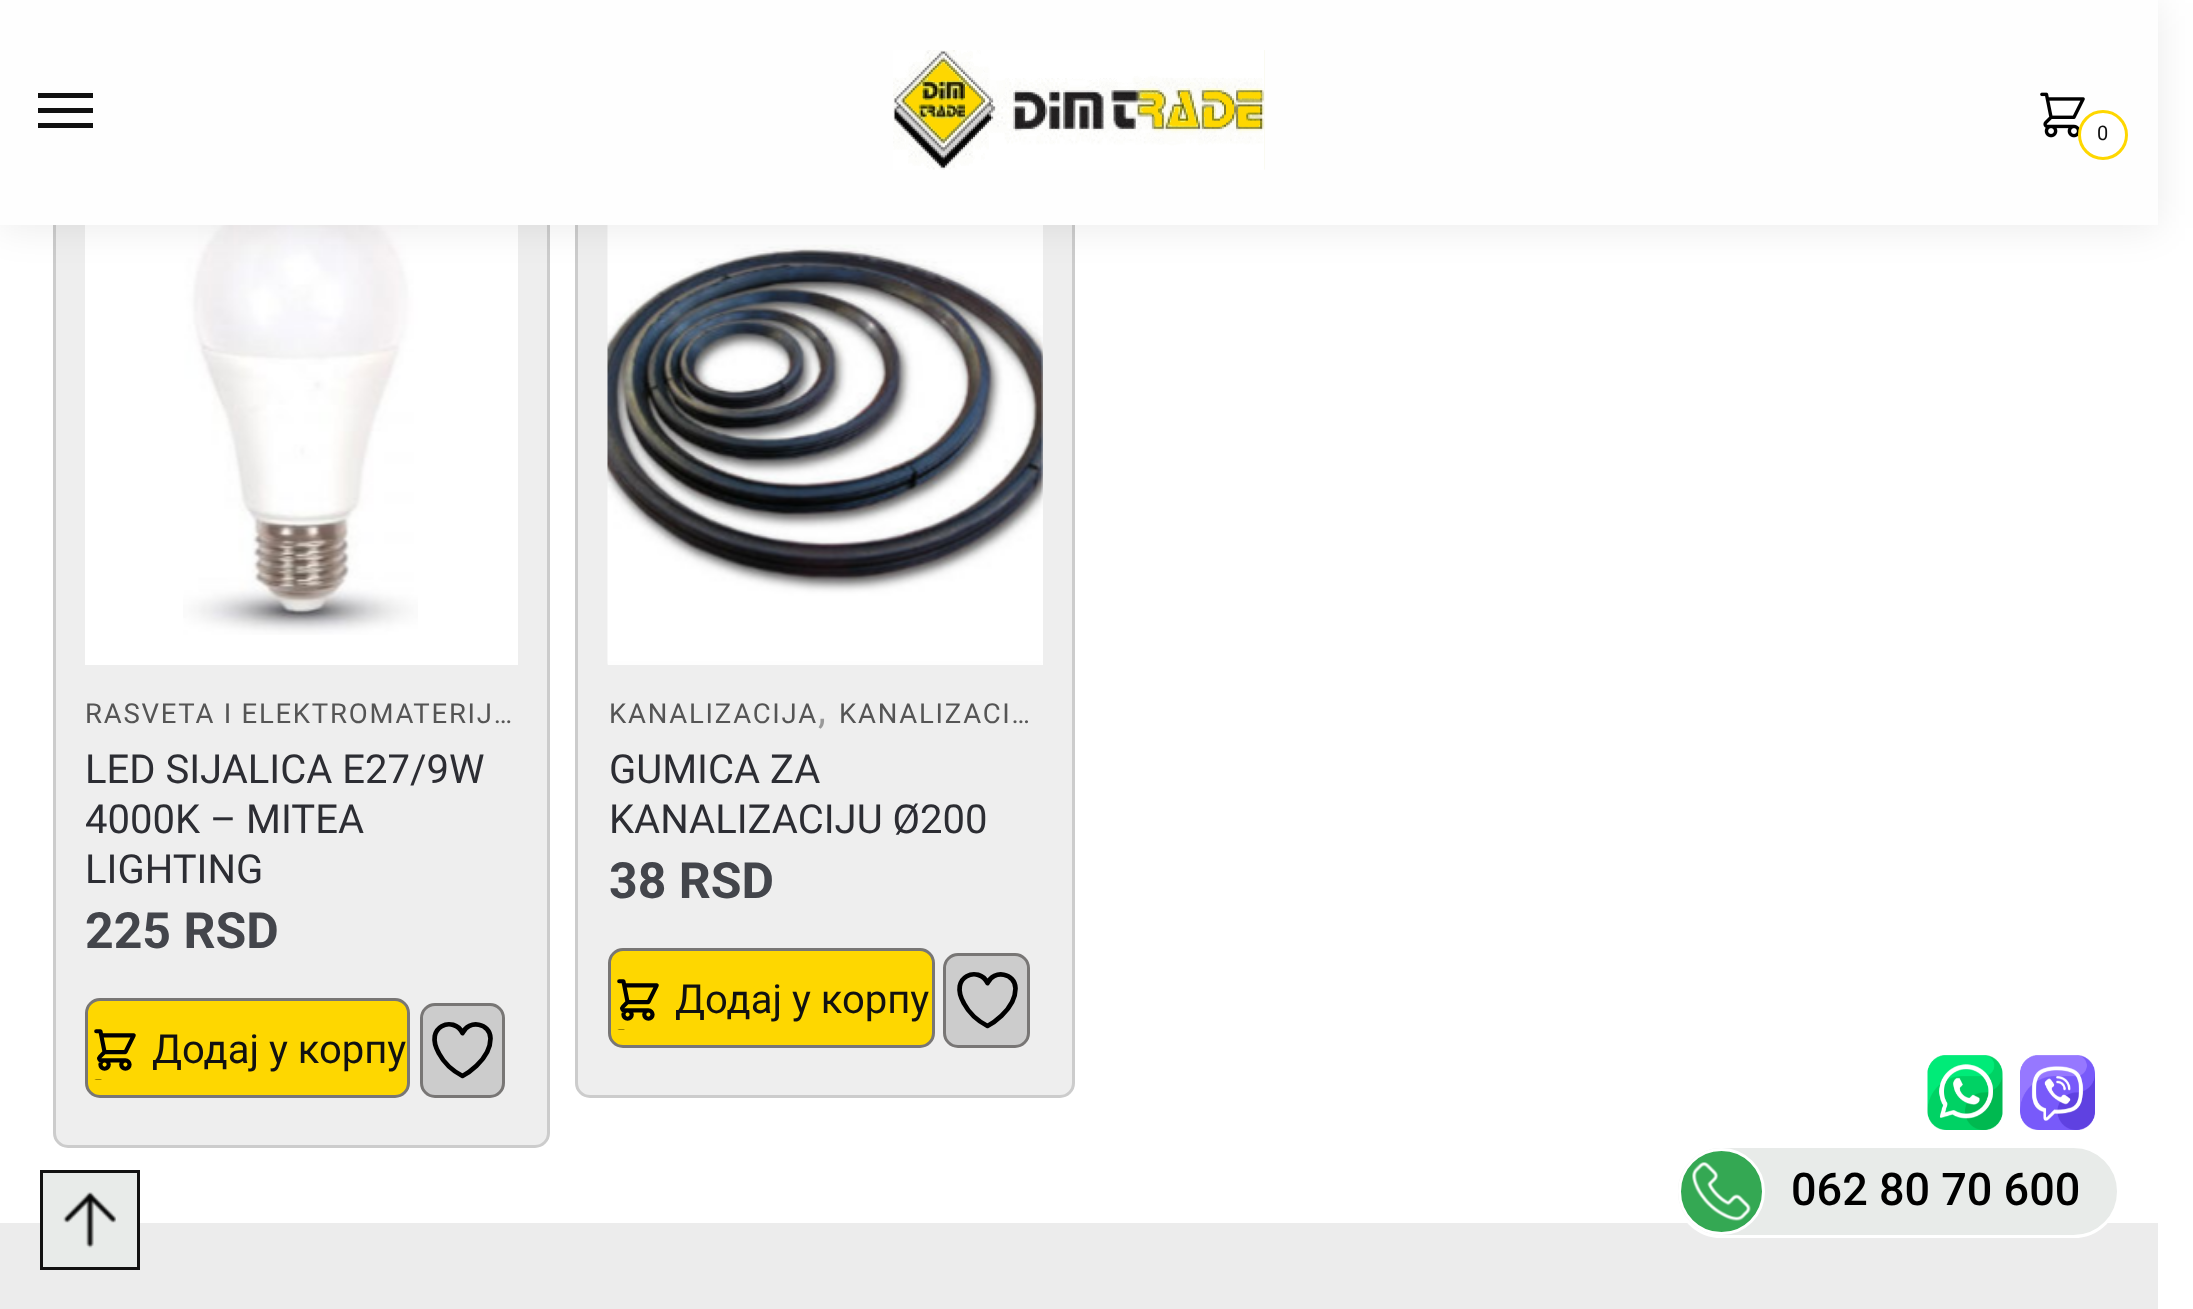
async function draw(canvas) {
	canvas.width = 2193;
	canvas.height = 1309;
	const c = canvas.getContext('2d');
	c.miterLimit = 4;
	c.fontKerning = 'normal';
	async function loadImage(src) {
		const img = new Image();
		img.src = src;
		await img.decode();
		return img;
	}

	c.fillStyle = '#fff';
	c.fillRect(0, 0, 2193, 1309);
	c.fillStyle = '#eee';
	c.beginPath();
	c.roundRect(54.5, 134.5, 494, 1012, 13.5);
	c.fill();
	c.strokeStyle = '#ccc';
	c.lineWidth = 3;
	c.stroke();
	c.fillStyle = '#fff';
	c.fillRect(85, 225, 433, 440);
	c.drawImage(await loadImage('img3.png'), 183, 225, 235, 410);
	c.fillStyle = '#eee';
	c.beginPath();
	c.roundRect(576.5, 134.5, 497, 962, 13.5);
	c.fill();
	c.stroke();
	c.fillStyle = '#fff';
	c.fillRect(608, 225, 435, 440);
	c.drawImage(await loadImage('img5.png'), 607, 225, 436, 440);
	c.fillStyle = '#00000014';
	c.filter = 'blur(19px)';
	c.beginPath();
	c.rect(0, 3, 2158, 225);
	c.fill();
	c.filter = 'none';
	for (const [x, y, w, h, color] of [
		[0, 0, 2158, 225, '#fefefe'],
		[38, 93, 55, 5, '#111'],
		[38, 108, 55, 5, '#111'],
		[38, 123, 55, 5, '#111'],
	]) {
		c.fillStyle = color;
		c.fillRect(x, y, w, h);
	}
	c.drawImage(await loadImage('img1.png'), 893, 50, 372, 120);
	c.drawImage(await loadImage('img2.png'), 2040, 92, 45, 46);
	c.fillStyle = '#fff';
	c.beginPath();
	c.arc(2103, 135, 23.5, 0, 2 * Math.PI);
	c.fill();
	c.strokeStyle = '#fed700';
	c.stroke();
	c.font = '20px Roboto';
	c.fillStyle = '#111';
	c.fillText('0', 2097, 140);
	c.letterSpacing = '1.75px';
	c.font = '27.5px Roboto';
	c.fillStyle = '#555';
	c.fillText('RASVETA I ELEKTROMATERIJ…', 85, 723);
	c.letterSpacing = '0px';
	c.font = '40px Roboto';
	c.fillStyle = '#2c2d33';
	for (const [text, x, y] of [
		['LED SIJALICA E27/9W', 85, 783],
		['4000K – MITEA', 85, 833],
		['LIGHTING', 85, 883],
	]) {
		c.fillText(text, x, y);
	}
	c.font = 'bold 50px Roboto';
	c.fillStyle = '#43454b';
	c.fillText('225 RSD', 85, 948);
	c.fillStyle = '#fed700';
	c.beginPath();
	c.roundRect(86.5, 999.5, 322, 97, 13.5);
	c.fill();
	c.strokeStyle = '#787675';
	c.stroke();
	c.drawImage(await loadImage('img4.png'), 94, 1029, 42, 51);
	c.font = '40px Roboto';
	c.fillStyle = '#111';
	c.fillText('Додај у корпу', 152, 1063);
	c.fillStyle = '#ccc';
	c.beginPath();
	c.roundRect(421.5, 1004.5, 82, 92, 13.5);
	c.fill();
	c.stroke();
	c.beginPath();
	c.moveTo(490.5, 1038.5);
	c.bezierCurveTo(490.5, 1023, 468.5, 1019, 462.5, 1033);
	c.bezierCurveTo(454.5, 1015.5, 423, 1025.5, 439, 1053.5);
	c.bezierCurveTo(444, 1063, 453, 1071, 462.5, 1076);
	c.bezierCurveTo(462.5, 1076, 490.5, 1061, 490.5, 1038.5);
	c.closePath();
	c.strokeStyle = '#000';
	c.lineWidth = 4.7;
	c.lineCap = 'round';
	c.lineJoin = 'round';
	c.stroke();
	c.letterSpacing = '1.75px';
	c.font = '27.5px Roboto';
	c.fillStyle = '#555';
	c.fillText('KANALIZACIJA', 609, 723);
	c.font = '40px Roboto';
	c.fillStyle = '#999';
	c.fillText(',', 818, 723);
	c.font = '27.5px Roboto';
	c.fillStyle = '#555';
	c.fillText('KANALIZACI…', 839, 723);
	c.letterSpacing = '0px';
	c.font = '40px Roboto';
	c.fillStyle = '#2c2d33';
	c.fillText('GUMICA ZA', 609, 783);
	c.fillText('KANALIZACIJU Ø200', 609, 833);
	c.font = 'bold 50px Roboto';
	c.fillStyle = '#43454b';
	c.fillText('38 RSD', 609, 898);
	c.fillStyle = '#fed700';
	c.beginPath();
	c.roundRect(609.5, 949.5, 324, 97, 13.5);
	c.fill();
	c.strokeStyle = '#787675';
	c.lineWidth = 3;
	c.lineJoin = 'miter';
	c.stroke();
	c.drawImage(await loadImage('img4.png'), 617, 979, 42, 51);
	c.font = '40px Roboto';
	c.fillStyle = '#111';
	c.fillText('Додај у корпу', 675, 1013);
	c.beginPath();
	c.moveTo(755.5, 1017);
	c.bezierCurveTo(746.5, 1007.5, 746.5, 992.5, 755.5, 983);
	c.strokeStyle = '#fed700';
	c.lineWidth = 2.5;
	c.lineCap = 'butt';
	c.stroke();
	c.fillStyle = '#ccc';
	c.beginPath();
	c.roundRect(944.5, 954.5, 84, 92, 13.5);
	c.fill();
	c.strokeStyle = '#787675';
	c.lineWidth = 3;
	c.stroke();
	c.beginPath();
	c.moveTo(1015.5, 988.5);
	c.bezierCurveTo(1015.5, 973, 993.5, 969, 987.5, 983);
	c.bezierCurveTo(979.5, 965.5, 948, 975.5, 964, 1003.5);
	c.bezierCurveTo(969, 1013, 978, 1021, 987.5, 1026);
	c.bezierCurveTo(987.5, 1026, 1015.5, 1011, 1015.5, 988.5);
	c.closePath();
	c.strokeStyle = '#000';
	c.lineWidth = 4.7;
	c.lineCap = 'round';
	c.lineJoin = 'round';
	c.stroke();
	c.drawImage(await loadImage('img6.png'), 1927, 1055, 76, 75);
	c.drawImage(await loadImage('img7.png'), 2020, 1055, 75, 75);
	c.fillStyle = '#ececec';
	c.fillRect(0, 1223, 2158, 86);
	c.fillStyle = '#e8ebe9';
	c.beginPath();
	c.roundRect(1676.5, 1146.5, 442, 90, 45);
	c.fill();
	c.strokeStyle = '#fff';
	c.lineWidth = 3;
	c.lineJoin = 'miter';
	c.stroke();
	c.fillStyle = '#34a853';
	c.beginPath();
	c.arc(1721.5, 1191.5, 42, 0, 2 * Math.PI);
	c.fill();
	c.stroke();
	c.drawImage(await loadImage('img8.png'), 1692, 1162, 59, 59);
	c.font = '500 45px Roboto';
	c.fillStyle = '#000';
	c.fillText('062 80 70 600', 1791, 1205);
	c.fillStyle = '#e8ebe9';
	c.beginPath();
	c.rect(41.5, 1171.5, 97, 97);
	c.fill();
	c.strokeStyle = '#111';
	c.stroke();
	c.drawImage(await loadImage('img9.png'), 63, 1192, 53, 56);
}

draw(document.querySelector('canvas'));
